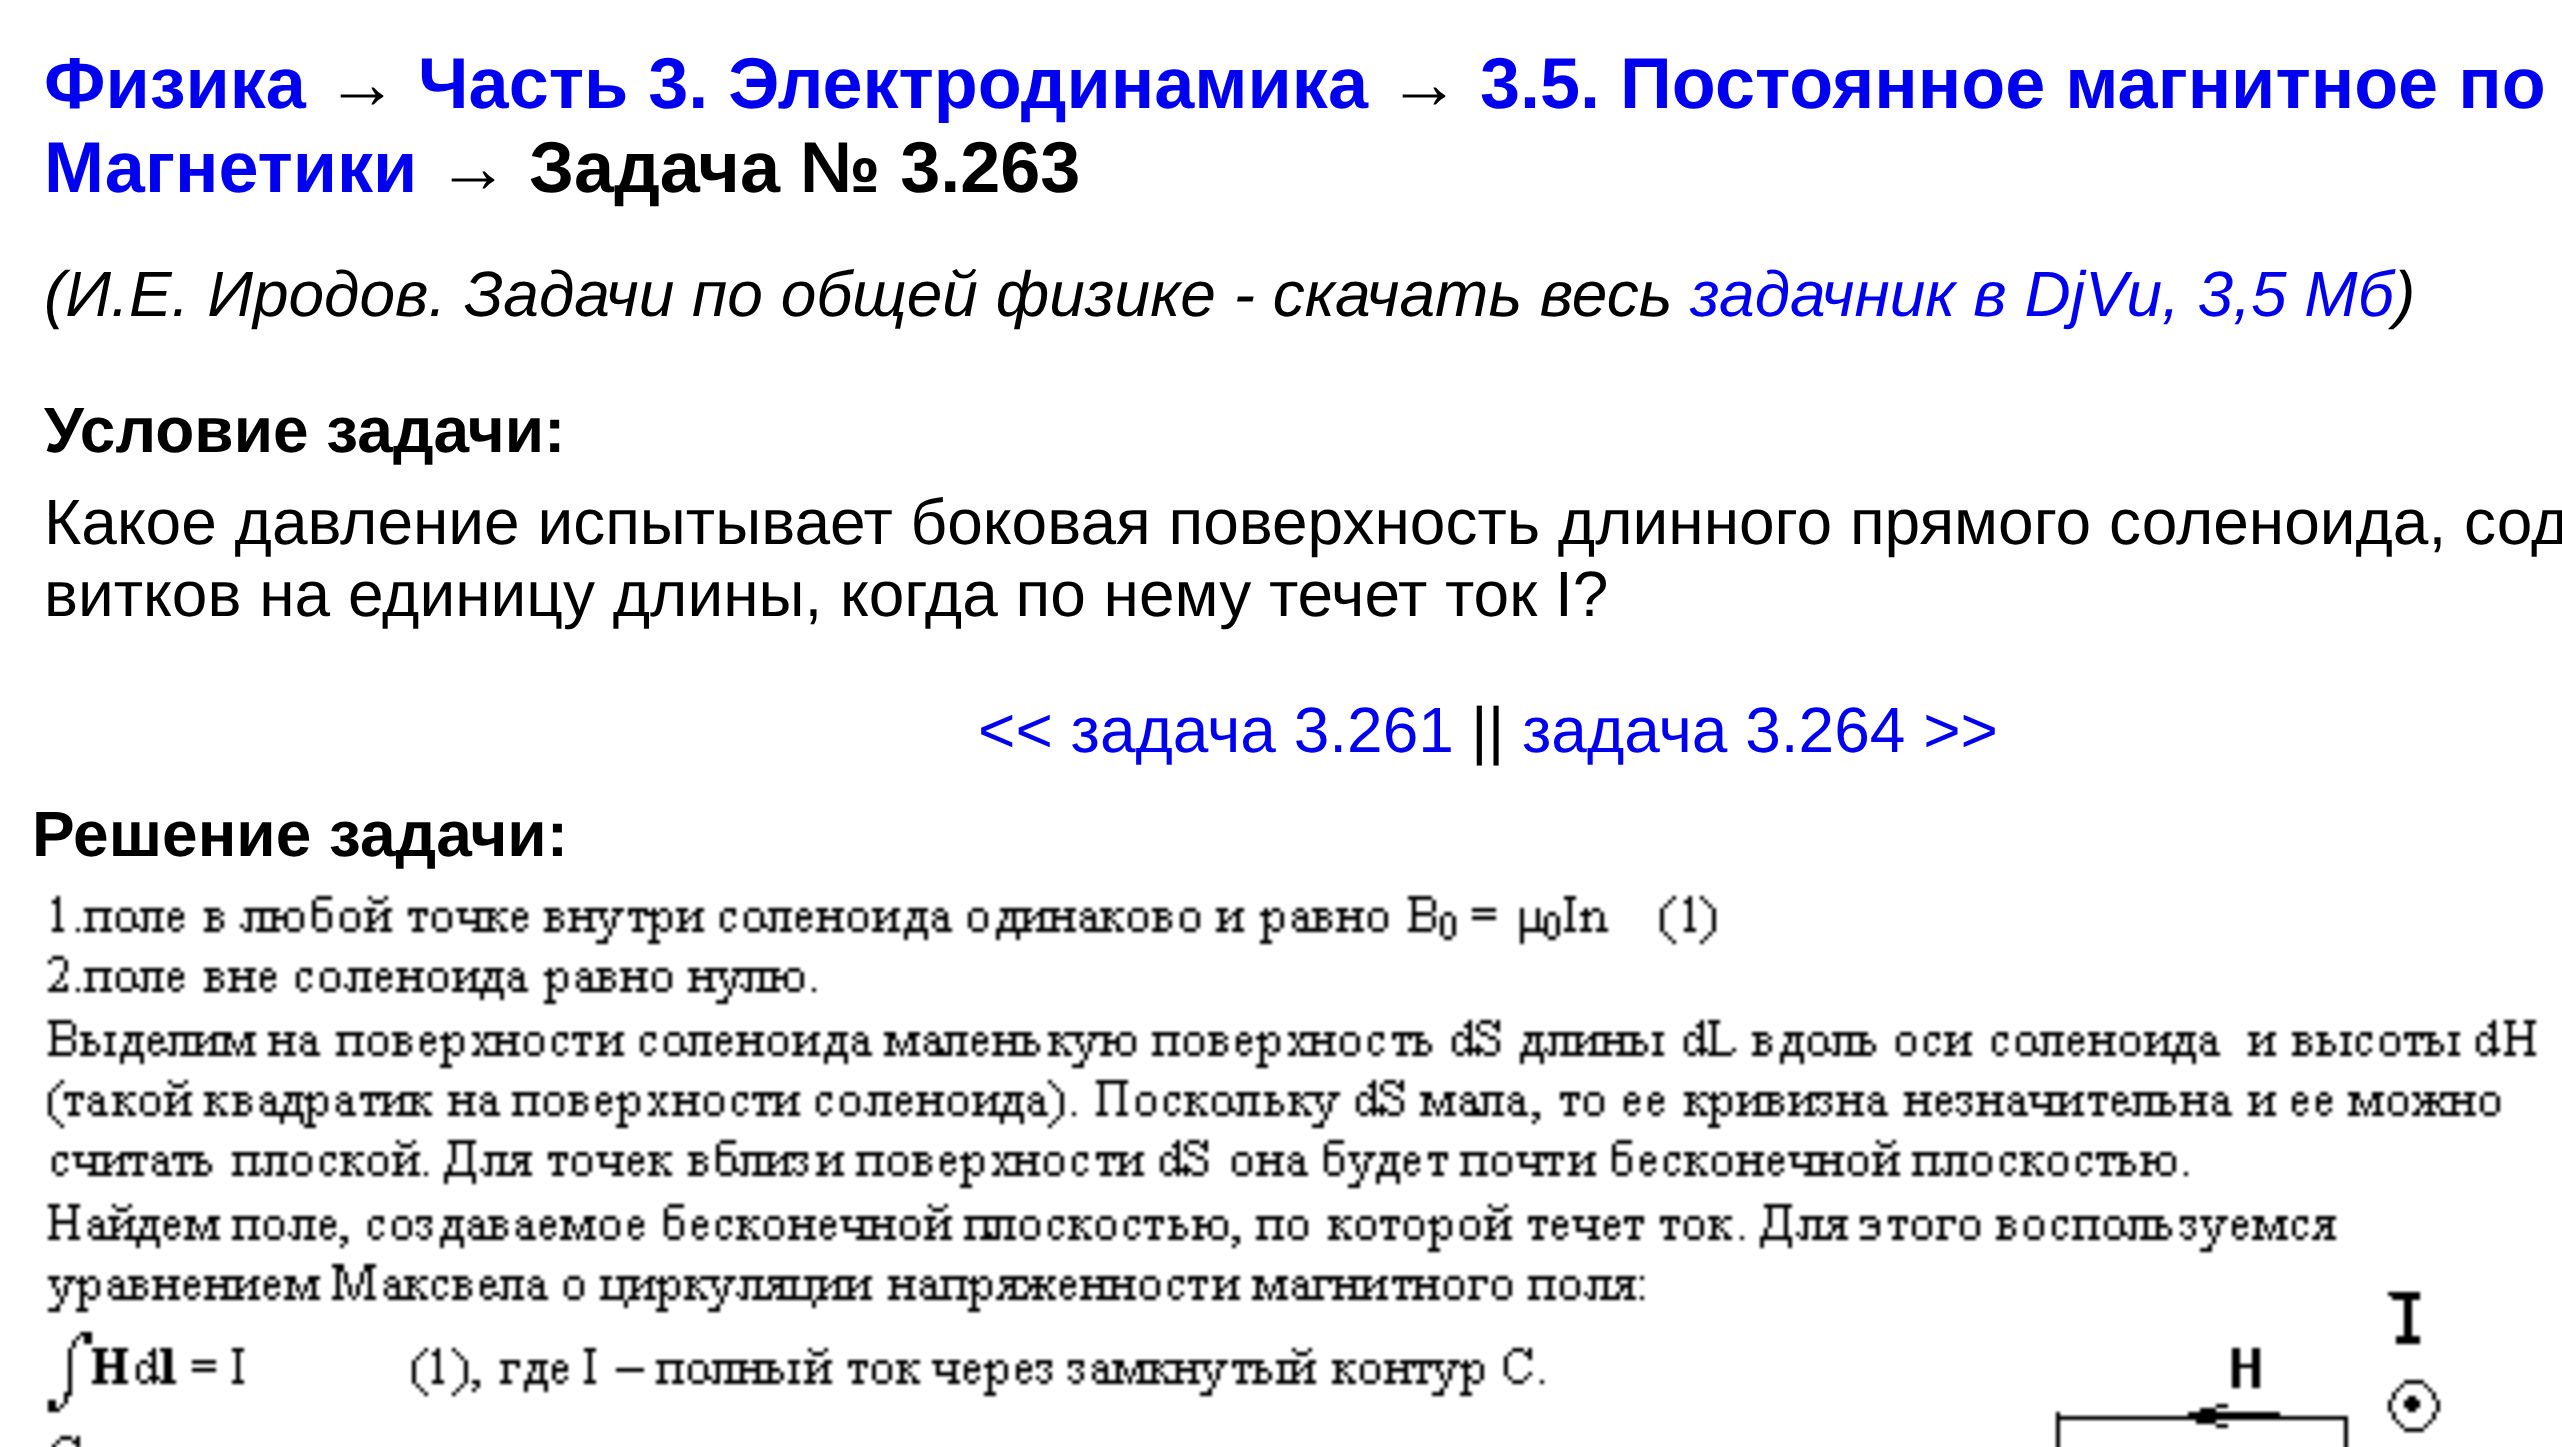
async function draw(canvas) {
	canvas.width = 2562;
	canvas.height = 1447;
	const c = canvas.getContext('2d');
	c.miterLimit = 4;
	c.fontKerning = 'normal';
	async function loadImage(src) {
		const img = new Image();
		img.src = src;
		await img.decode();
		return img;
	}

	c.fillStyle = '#fff';
	c.fillRect(0, 0, 2562, 1447);
	c.font = 'bold 72px Liberation Sans';
	c.fillStyle = '#00e';
	c.fillText('Физика', 44, 108);
	c.fillStyle = '#000';
	c.fillText('→', 326, 108);
	c.fillStyle = '#00e';
	c.fillText('Часть 3. Электродинамика', 418, 108);
	c.fillStyle = '#000';
	c.fillText('→', 1388, 108);
	c.fillStyle = '#00e';
	c.fillText('3.5. Постоянное магнитное по', 1480, 108);
	c.fillText('Магнетики', 44, 192);
	c.fillStyle = '#000';
	c.fillText('→ Задача № 3.263', 437, 192);
	c.font = 'italic 64px Liberation Sans';
	c.fillText('(И.Е. Иродов. Задачи по общей физике - скачать весь', 44, 316);
	c.fillStyle = '#00e';
	c.fillText('задачник в DjVu, 3,5 Мб', 1690, 316);
	c.fillStyle = '#000';
	c.fillText(')', 2394, 316);
	c.font = 'bold 64px Liberation Sans';
	c.fillText('Условие задачи:', 44, 452);
	c.font = '64px Liberation Sans';
	c.fillText('Какое давление испытывает боковая поверхность длинного прямого соленоида, сод', 44, 544);
	c.fillText('витков на единицу длины, когда по нему течет ток I?', 44, 616);
	c.fillStyle = '#00e';
	c.fillText('<< задача 3.261', 978, 752);
	c.fillStyle = '#000';
	c.fillText('||', 1471, 752);
	c.fillStyle = '#00e';
	c.fillText('задача 3.264 >>', 1522, 752);
	c.font = 'bold 64px Liberation Sans';
	c.fillStyle = '#000';
	c.fillText('Решение задачи:', 32, 856);
	c.drawImage(await loadImage('img1.png'), 46, 894, 2492, 553);
}

draw(document.querySelector('canvas'));
